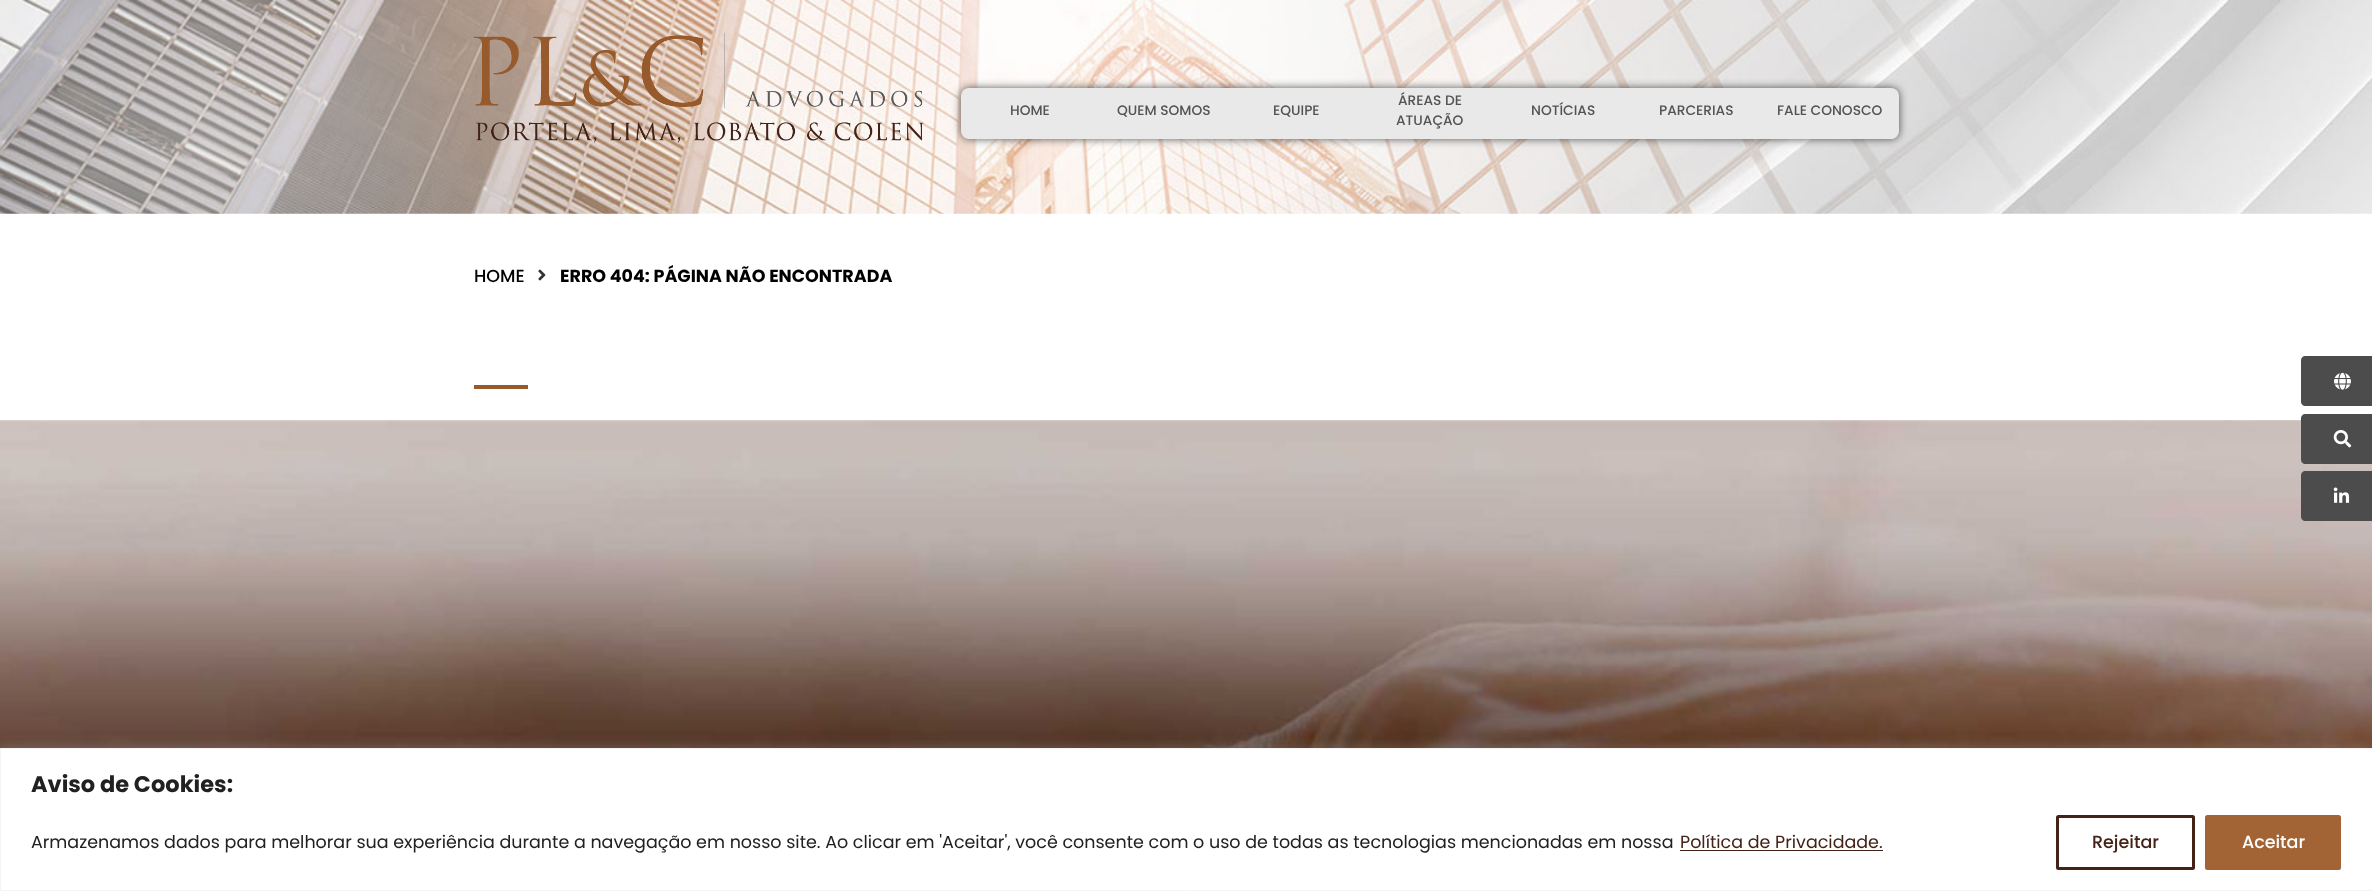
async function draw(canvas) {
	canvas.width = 2372;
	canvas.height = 891;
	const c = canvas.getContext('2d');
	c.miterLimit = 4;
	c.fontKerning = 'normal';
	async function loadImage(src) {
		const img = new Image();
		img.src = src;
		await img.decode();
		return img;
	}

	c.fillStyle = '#fff';
	c.fillRect(0, 0, 2372, 891);
	c.drawImage(await loadImage('img1.png'), 0, 0, 2372, 214);
	c.drawImage(await loadImage('img2.png'), 473, 32, 451, 111);
	c.fillStyle = '#000000a6';
	c.filter = 'blur(4px)';
	c.beginPath();
	c.roundRect(961, 88, 938, 51, 8);
	c.fill();
	c.filter = 'none';
	c.fillStyle = '#e9e9e9';
	c.beginPath();
	c.roundRect(961, 88, 938, 51, 8);
	c.fill();
	c.fillRect(968, 138, 1, 1);
	c.font = '500 13.75px Poppins';
	c.fillStyle = '#535353';
	for (const [text, x, y] of [
		['HOME', 1010, 115],
		['QUEM SOMOS', 1117, 115],
		['EQUIPE', 1273, 115],
		['ÁREAS DE', 1398, 105],
		['ATUAÇÃO', 1396, 125],
		['NOTÍCIAS', 1531, 115],
		['PARCERIAS', 1659, 115],
	]) {
		c.fillText(text, x, y);
	}
	c.fillStyle = '#e9e9e9';
	c.fillRect(1891, 138, 2, 1);
	c.fillStyle = '#535353';
	c.fillText('FALE CONOSCO', 1777, 115);
	c.font = '500 17.5px Poppins';
	c.fillStyle = '#000';
	c.fillText('HOME', 474, 282);
	c.drawImage(await loadImage('img3.png'), 538, 269, 8, 12);
	c.font = 'bold 17.5px Poppins';
	c.fillText('ERRO 404: PÁGINA NÃO ENCONTRADA', 560, 282);
	c.fillStyle = '#965a2c';
	c.fillRect(474, 385, 54, 4);
	c.fillStyle = '#4c4c4c';
	c.beginPath();
	c.moveTo(2305, 356);
	c.lineTo(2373, 356);
	c.lineTo(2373, 406);
	c.lineTo(2305, 406);
	c.bezierCurveTo(2303, 406, 2301, 404, 2301, 402);
	c.lineTo(2301, 360);
	c.bezierCurveTo(2301, 358, 2303, 356, 2305, 356);
	c.closePath();
	c.fill();
	c.drawImage(await loadImage('img4.png'), 2334, 372, 17, 18);
	c.drawImage(await loadImage('img7.png'), 0, 420, 2372, 328);
	c.beginPath();
	c.moveTo(2305, 414);
	c.lineTo(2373, 414);
	c.lineTo(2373, 464);
	c.lineTo(2305, 464);
	c.bezierCurveTo(2303, 464, 2301, 462, 2301, 460);
	c.lineTo(2301, 418);
	c.bezierCurveTo(2301, 416, 2303, 414, 2305, 414);
	c.closePath();
	c.fill();
	c.drawImage(await loadImage('img5.png'), 2333, 430, 19, 18);
	c.beginPath();
	c.moveTo(2305, 471);
	c.lineTo(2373, 471);
	c.lineTo(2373, 521);
	c.lineTo(2305, 521);
	c.bezierCurveTo(2303, 521, 2301, 519, 2301, 517);
	c.lineTo(2301, 475);
	c.bezierCurveTo(2301, 473, 2303, 471, 2305, 471);
	c.closePath();
	c.fill();
	c.drawImage(await loadImage('img6.png'), 2333, 487, 17, 16);
	c.fillStyle = '#acabab4d';
	c.filter = 'blur(6px)';
	c.beginPath();
	c.rect(0, 746, 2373, 144);
	c.fill();
	c.filter = 'none';
	c.fillStyle = '#fff';
	c.beginPath();
	c.rect(0.5, 748.5, 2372, 142);
	c.fill();
	c.strokeStyle = '#f4f4f4';
	c.stroke();
	c.font = 'bold 22.5px Poppins';
	c.fillStyle = '#212121';
	c.fillText('Aviso de Cookies:', 31, 792);
	c.font = '17.5px Poppins';
	c.fillText('Armazenamos dados para melhorar sua experiência durante a navegação em nosso site. Ao clicar em \'Aceitar\', você consente com o uso de todas as tecnologias mencionadas em nossa', 31, 848);
	c.fillStyle = '#432218';
	c.fillText('Política de Privacidade.', 1680, 848);
	c.fillRect(1680, 850, 203, 1);
	c.beginPath();
	c.roundRect(2057.5, 816.5, 136, 52, 1);
	c.strokeStyle = '#432218';
	c.lineWidth = 3;
	c.stroke();
	c.font = '500 17.5px Poppins';
	c.fillText('Rejeitar', 2092, 848);
	c.fillStyle = '#a26435';
	c.beginPath();
	c.roundRect(2206.5, 816.5, 133, 52, 1);
	c.fill();
	c.strokeStyle = '#a26435';
	c.stroke();
	c.fillStyle = '#fff';
	c.fillText('Aceitar', 2242, 848);
}

draw(document.querySelector('canvas'));
